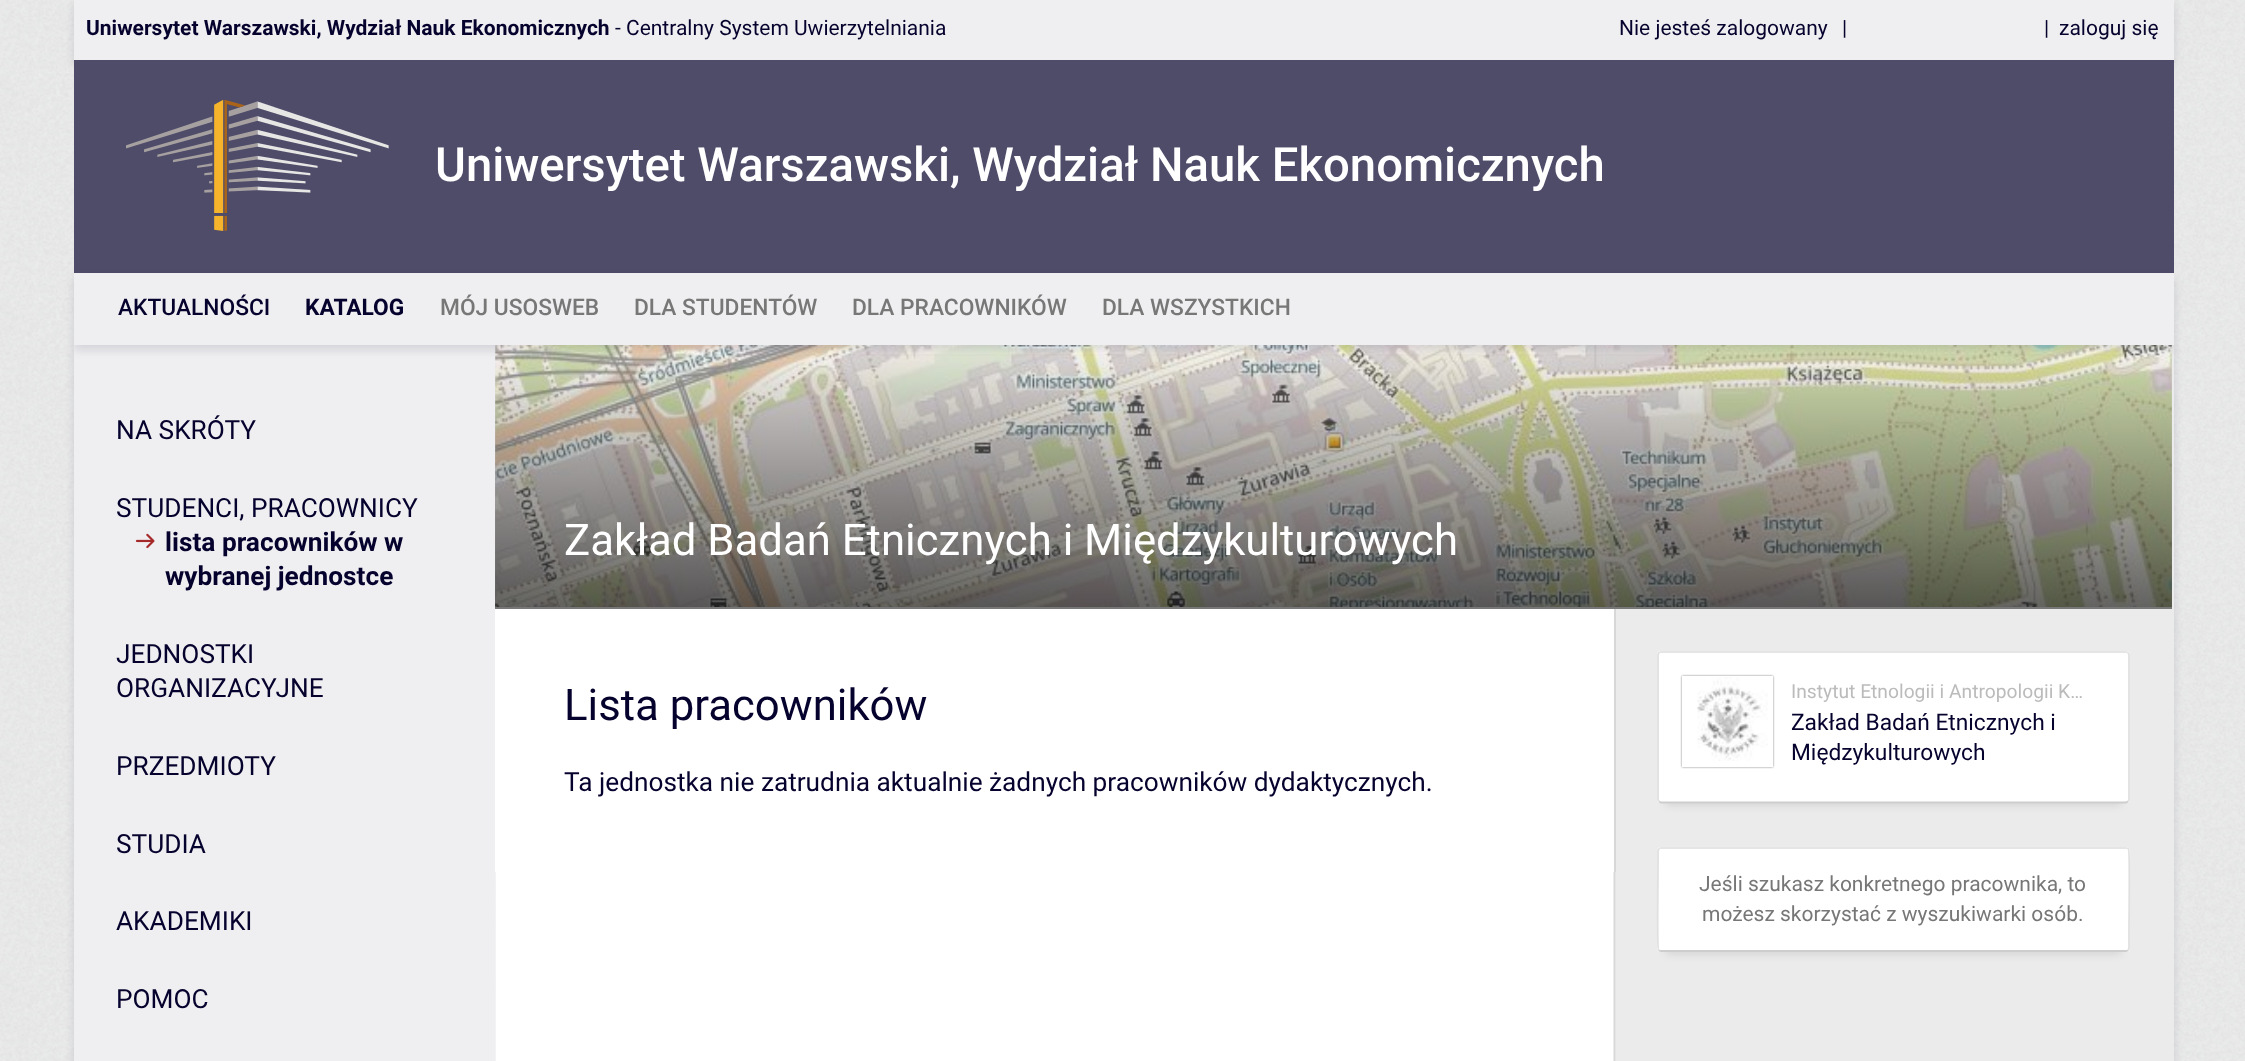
async function draw(canvas) {
	canvas.width = 2245;
	canvas.height = 1061;
	const c = canvas.getContext('2d');
	c.miterLimit = 4;
	c.fontKerning = 'normal';
	async function loadImage(src) {
		const img = new Image();
		img.src = src;
		await img.decode();
		return img;
	}
	let gradient;

	c.fillStyle = '#fff';
	c.fillRect(0, 0, 2245, 1061);
	c.drawImage(await loadImage('img1.png'), 0, 0, 2245, 1061);
	c.fillStyle = '#0606331f';
	c.filter = 'blur(5px)';
	c.beginPath();
	c.rect(74, 5, 2100, 60);
	c.fill();
	c.filter = 'none';
	c.fillStyle = '#efeff1';
	c.fillRect(74, 0, 2100, 60);
	c.font = 'bold 21px Roboto';
	c.fillStyle = '#06022e';
	c.fillText('Uniwersytet Warszawski, Wydział Nauk Ekonomicznych', 86, 35);
	c.font = '21px Roboto';
	for (const [text, x, y] of [
		['- Centralny System Uwierzytelniania', 615, 35],
		['Nie jesteś zalogowany', 1619, 35],
		['|', 1842, 35],
		['|', 2044, 35],
		['zaloguj się', 2059, 35],
	]) {
		c.fillText(text, x, y);
	}
	c.fillStyle = '#4f4c6a';
	c.fillRect(74, 60, 2100, 213);
	c.drawImage(await loadImage('img2.png'), 126, 100, 263, 131);
	c.font = '500 47.25px Roboto';
	c.fillStyle = '#fff';
	c.fillText('Uniwersytet Warszawski, Wydział Nauk Ekonomicznych', 435, 181);
	c.fillStyle = '#0606331f';
	c.filter = 'blur(5px)';
	c.beginPath();
	c.rect(74, 350, 2100, 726);
	c.fill();
	c.filter = 'none';
	c.fillStyle = '#efeff1';
	c.fillRect(74, 345, 421, 716);
	c.drawImage(await loadImage('img4.png'), 495, 345, 1677, 716);
	c.fillStyle = '#ebebeb';
	c.fillRect(2172, 345, 2, 716);
	c.drawImage(await loadImage('img5.png'), 495, 345, 1677, 262);
	gradient = c.createLinearGradient(1334, 345, 1334, 607);
	gradient.addColorStop(0, '#00000000');
	gradient.addColorStop(1, '#00000099');
	c.fillStyle = gradient;
	c.fillRect(495, 354, 1677, 253);
	c.fillStyle = '#0606331f';
	c.filter = 'blur(5px)';
	c.beginPath();
	c.rect(74, 278, 2100, 72);
	c.fill();
	c.filter = 'none';
	c.fillStyle = '#efeff1';
	c.fillRect(74, 273, 2100, 72);
	c.font = '500 22.75px Roboto';
	c.fillStyle = '#06022e';
	c.fillText('AKTUALNOŚCI', 118, 315);
	c.font = 'bold 22.75px Roboto';
	c.fillText('KATALOG', 305, 315);
	c.font = '500 22.75px Roboto';
	c.fillStyle = '#777';
	for (const [text, x, y] of [
		['MÓJ USOSWEB', 440, 315],
		['DLA STUDENTÓW', 634, 315],
		['DLA PRACOWNIKÓW', 852, 315],
		['DLA WSZYSTKICH', 1102, 315],
	]) {
		c.fillText(text, x, y);
	}
	c.font = '26.25px Roboto';
	c.fillStyle = '#06022e';
	c.fillText('NA SKRÓTY', 116, 439);
	c.fillText('STUDENCI, PRACOWNICY', 116, 517);
	c.drawImage(await loadImage('img3.png'), 135, 533, 20, 16);
	c.font = 'bold 26.25px Roboto';
	c.fillText('lista pracowników w', 165, 551);
	c.fillText('wybranej jednostce', 165, 585);
	c.font = '26.25px Roboto';
	for (const [text, x, y] of [
		['JEDNOSTKI', 116, 663],
		['ORGANIZACYJNE', 116, 697],
		['PRZEDMIOTY', 116, 775],
		['STUDIA', 116, 853],
		['AKADEMIKI', 116, 930],
		['POMOC', 116, 1008],
	]) {
		c.fillText(text, x, y);
	}
	c.fillStyle = '#777';
	c.fillRect(495, 607, 1677, 2);
	c.font = '43.75px Roboto';
	c.fillStyle = '#fff';
	c.fillText('Zakład Badań Etnicznych i Międzykulturowych', 564, 555);
	c.fillRect(495, 609, 1119, 263);
	c.fillStyle = '#d7d7d7';
	c.fillRect(1615, 609, 1, 263);
	c.fillStyle = '#06022e';
	c.fillText('Lista pracowników', 564, 720);
	c.font = '26.25px Roboto';
	c.fillText('Ta jednostka nie zatrudnia aktualnie żadnych pracowników dydaktycznych.', 564, 791);
	c.fillStyle = '#0000001a';
	c.filter = 'blur(4.5px)';
	c.beginPath();
	c.rect(1666, 670, 455, 135);
	c.fill();
	c.filter = 'none';
	c.fillStyle = '#fff';
	c.beginPath();
	c.roundRect(1657, 651, 473, 152, 4);
	c.fill();
	c.beginPath();
	c.moveTo(1659, 652.5);
	c.lineTo(1661, 652);
	c.lineTo(2126, 652);
	c.lineTo(2128, 652.5);
	c.strokeStyle = '#e5e5e5';
	c.lineWidth = 1.8;
	c.stroke();
	c.beginPath();
	c.moveTo(2128, 652.5);
	c.lineTo(2129, 654.5);
	c.lineTo(2129, 800);
	c.lineTo(2128, 801.5);
	c.strokeStyle = '#e0e0e0';
	c.stroke();
	c.beginPath();
	c.moveTo(2128, 801.5);
	c.lineTo(2126, 802.5);
	c.lineTo(1661, 802.5);
	c.lineTo(1659, 801.5);
	c.strokeStyle = '#cdcdcd';
	c.stroke();
	c.beginPath();
	c.moveTo(1659, 801.5);
	c.lineTo(1658, 800);
	c.lineTo(1658, 654.5);
	c.lineTo(1659, 652.5);
	c.strokeStyle = '#e0e0e0';
	c.stroke();
	c.save();
	c.beginPath();
	c.moveTo(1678, 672);
	c.lineTo(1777, 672);
	c.lineTo(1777, 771);
	c.lineTo(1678, 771);
	c.closePath();
	c.moveTo(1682, 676);
	c.lineTo(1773, 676);
	c.lineTo(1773, 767);
	c.lineTo(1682, 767);
	c.closePath();
	c.clip('evenodd');
	c.fillStyle = '#00000080';
	c.filter = 'blur(1px)';
	c.beginPath();
	c.rect(1682, 676, 91, 91);
	c.fill();
	c.filter = 'none';
	c.restore();
	c.strokeStyle = '#fff';
	c.lineWidth = 2;
	c.strokeRect(1683, 677, 89, 89);
	c.drawImage(await loadImage('img6.png'), 1697, 677, 71, 84);
	c.font = '19.25px Roboto';
	c.fillStyle = '#bbb';
	c.fillText('Instytut Etnologii i Antropologii K…', 1791, 698);
	c.font = '22.75px Roboto';
	c.fillStyle = '#06022e';
	c.fillText('Zakład Badań Etnicznych i', 1791, 730);
	c.fillText('Międzykulturowych', 1791, 760);
	c.fillStyle = '#0000001a';
	c.filter = 'blur(4.5px)';
	c.beginPath();
	c.rect(1666, 866, 455, 88);
	c.fill();
	c.filter = 'none';
	c.fillStyle = '#fff';
	c.beginPath();
	c.roundRect(1657, 847, 473, 105, 4);
	c.fill();
	c.beginPath();
	c.moveTo(1659, 848.5);
	c.lineTo(1661, 848);
	c.lineTo(2126, 848);
	c.lineTo(2128, 848.5);
	c.strokeStyle = '#e5e5e5';
	c.lineWidth = 1.8;
	c.stroke();
	c.beginPath();
	c.moveTo(2128, 848.5);
	c.lineTo(2128.5, 849);
	c.bezierCurveTo(2130, 851, 2129, 923.5, 2129, 932);
	c.lineTo(2129, 948.5);
	c.lineTo(2128, 950.5);
	c.strokeStyle = '#e0e0e0';
	c.stroke();
	c.beginPath();
	c.moveTo(2128, 950.5);
	c.lineTo(2126, 951);
	c.lineTo(1661, 951);
	c.lineTo(1659, 950.5);
	c.strokeStyle = '#cdcdcd';
	c.stroke();
	c.beginPath();
	c.moveTo(1659, 950.5);
	c.lineTo(1658.5, 950);
	c.bezierCurveTo(1657, 948, 1658, 875.5, 1658, 867);
	c.lineTo(1658, 850.5);
	c.lineTo(1659, 848.5);
	c.strokeStyle = '#e0e0e0';
	c.stroke();
	c.font = '21px Roboto';
	c.fillStyle = '#777';
	c.fillText('Jeśli szukasz konkretnego pracownika, to', 1699, 891);
	c.fillText('możesz skorzystać z wyszukiwarki osób.', 1702, 921);
}

draw(document.querySelector('canvas'));
